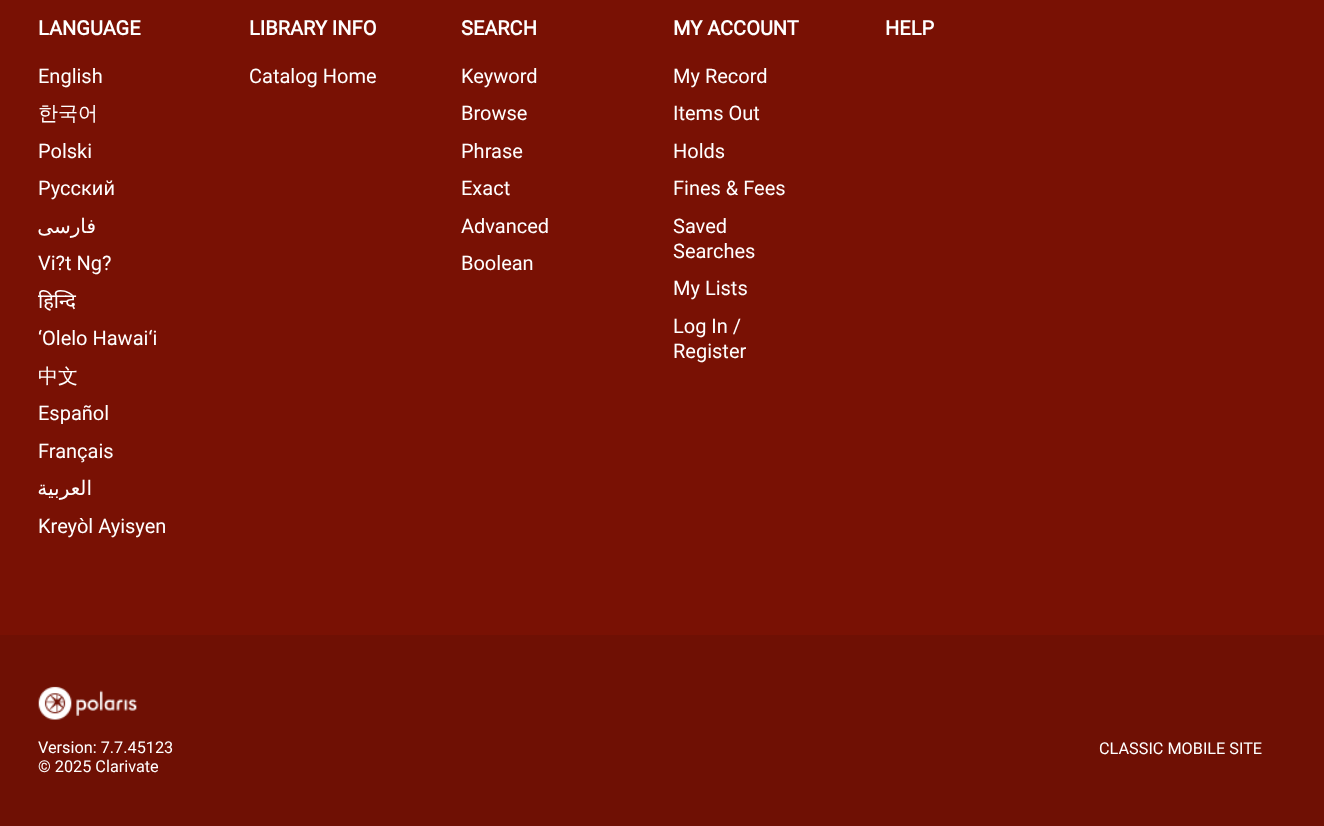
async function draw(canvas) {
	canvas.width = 1324;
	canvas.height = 826;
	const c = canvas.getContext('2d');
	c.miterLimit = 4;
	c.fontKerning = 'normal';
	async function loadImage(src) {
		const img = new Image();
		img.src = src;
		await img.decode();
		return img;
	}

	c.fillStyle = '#791104';
	c.fillRect(0, 0, 1324, 826);
	c.font = 'bold 20px Roboto';
	c.fillStyle = '#fff';
	c.fillText('LANGUAGE', 38, 35);
	c.font = '20px Roboto';
	c.fillText('English', 38, 83);
	c.font = '500 20px WenQuanYi Zen Hei';
	c.fillText('한국어', 38, 120);
	c.font = '20px Roboto';
	c.fillText('Polski', 38, 158);
	c.fillText('Русский', 38, 195);
	c.direction = 'rtl';
	c.font = '20px DejaVu Sans';
	c.fillText('فارسی', 96, 233);
	c.direction = 'ltr';
	c.font = '20px Roboto';
	c.fillText('Vi?t Ng?', 38, 270);
	c.font = '20px Noto Sans';
	c.fillText('हिन्दि', 38, 308);
	c.font = '20px Roboto';
	c.fillText('‘Olelo Hawai‘i', 38, 345);
	c.font = '500 20px WenQuanYi Zen Hei';
	c.fillText('中文', 38, 383);
	c.font = '20px Roboto';
	c.fillText('Español', 38, 420);
	c.fillText('Français', 38, 458);
	c.direction = 'rtl';
	c.font = '20px DejaVu Sans';
	c.fillText('العربية', 92, 495);
	c.direction = 'ltr';
	c.font = '20px Roboto';
	c.fillText('Kreyòl Ayisyen', 38, 533);
	c.font = 'bold 20px Roboto';
	c.fillText('LIBRARY INFO', 249, 35);
	c.font = '20px Roboto';
	c.fillText('Catalog Home', 249, 83);
	c.font = 'bold 20px Roboto';
	c.fillText('SEARCH', 461, 35);
	c.font = '20px Roboto';
	for (const [text, x, y] of [
		['Keyword', 461, 83],
		['Browse', 461, 120],
		['Phrase', 461, 158],
		['Exact', 461, 195],
		['Advanced', 461, 233],
		['Boolean', 461, 270],
	]) {
		c.fillText(text, x, y);
	}
	c.font = 'bold 20px Roboto';
	c.fillText('MY ACCOUNT', 673, 35);
	c.font = '20px Roboto';
	for (const [text, x, y] of [
		['My Record', 673, 83],
		['Items Out', 673, 120],
		['Holds', 673, 158],
		['Fines & Fees', 673, 195],
		['Saved', 673, 233],
		['Searches', 673, 258],
		['My Lists', 673, 295],
		['Log In /', 673, 333],
		['Register', 673, 358],
	]) {
		c.fillText(text, x, y);
	}
	c.font = 'bold 20px Roboto';
	c.fillText('HELP', 885, 35);
	c.fillStyle = '#6f1004';
	c.fillRect(0, 635, 1324, 191);
	c.drawImage(await loadImage('img1.png'), 38, 686, 99, 34);
	c.font = '16.25px Roboto';
	c.fillStyle = '#fff';
	for (const [text, x, y] of [
		['Version: 7.7.45123', 38, 753],
		['© 2025 Clarivate', 38, 772],
		['CLASSIC MOBILE SITE', 1099, 754],
	]) {
		c.fillText(text, x, y);
	}
}

draw(document.querySelector('canvas'));
